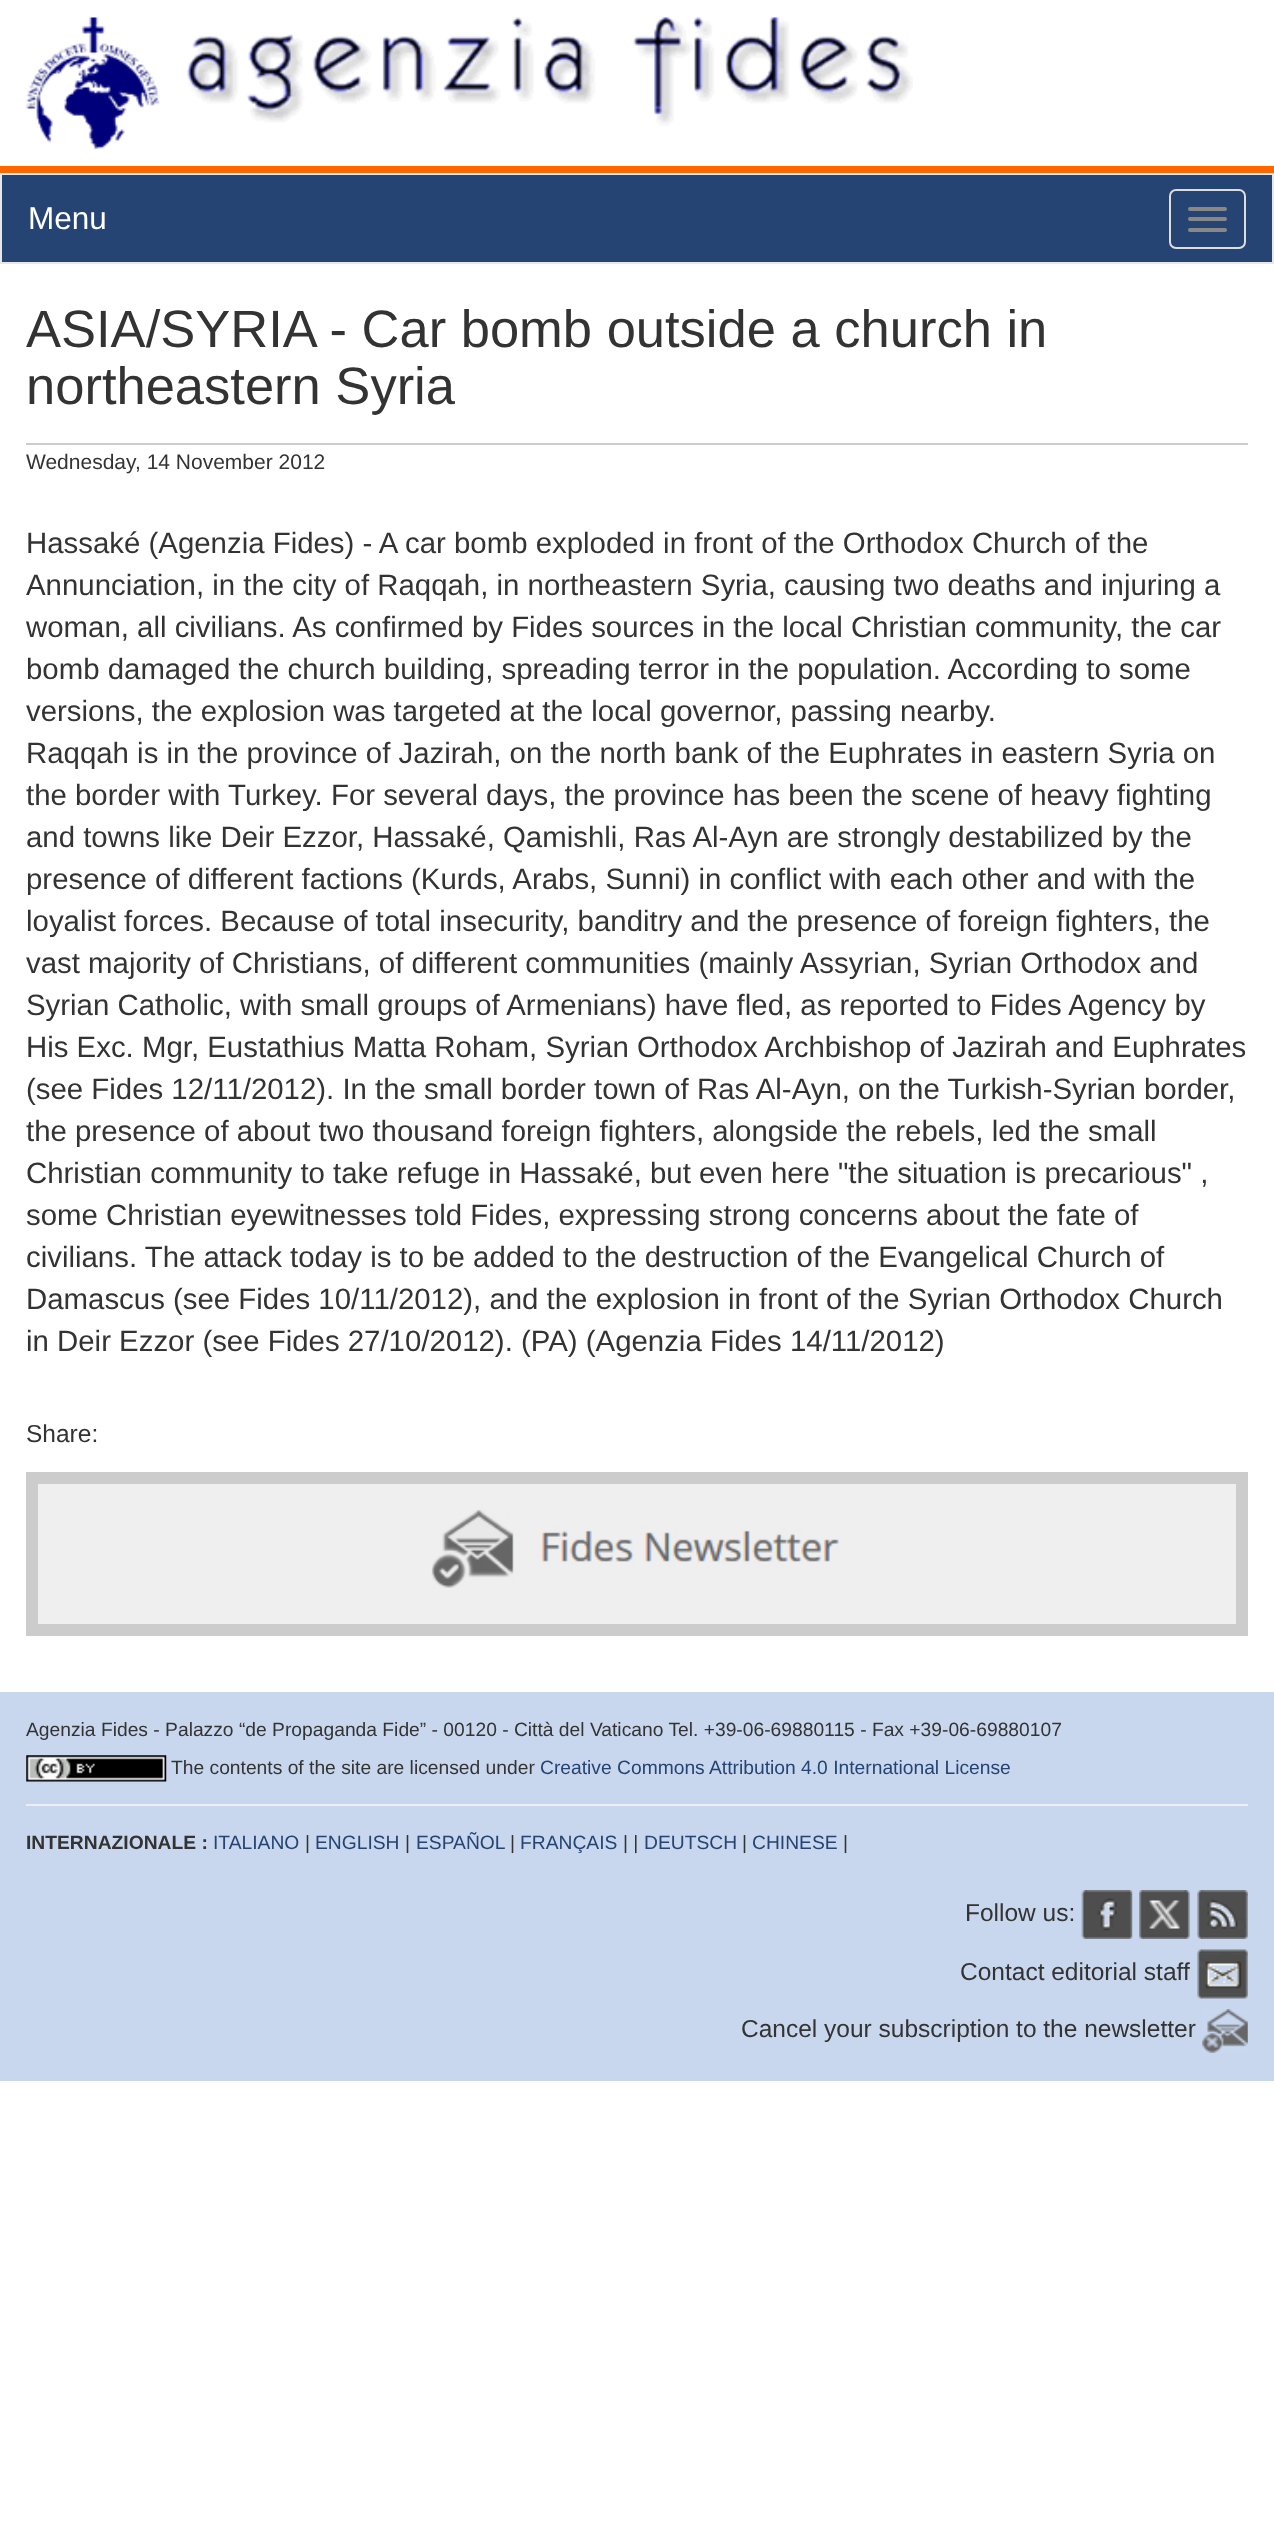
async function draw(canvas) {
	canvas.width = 1274;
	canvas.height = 2548;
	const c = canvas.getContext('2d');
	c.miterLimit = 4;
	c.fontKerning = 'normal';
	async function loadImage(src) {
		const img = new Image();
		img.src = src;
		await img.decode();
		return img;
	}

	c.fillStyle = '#fff';
	c.fillRect(0, 0, 1274, 2548);
	c.fillStyle = '#f60';
	c.fillRect(0, 166, 1274, 7);
	c.drawImage(await loadImage('img1.png'), 26, 17, 887, 132);
	c.fillStyle = '#254473';
	c.beginPath();
	c.rect(1, 174, 1272, 89);
	c.fill();
	c.strokeStyle = '#e7e7e7';
	c.lineWidth = 2;
	c.stroke();
	c.font = '31.5px Liberation Sans';
	c.fillStyle = '#fff';
	c.fillText('Menu', 28, 229);
	c.beginPath();
	c.roundRect(1170, 190, 75, 58, 6);
	c.strokeStyle = '#ddd';
	c.stroke();
	c.fillStyle = '#888';
	c.beginPath();
	c.roundRect(1188, 207, 39, 4, 2);
	c.fill();
	c.beginPath();
	c.roundRect(1188, 217, 39, 4, 2);
	c.fill();
	c.beginPath();
	c.roundRect(1188, 228, 39, 4, 2);
	c.fill();
	c.fillStyle = '#ccc';
	c.fillRect(26, 443, 1222, 2);
	c.font = '52.5px Liberation Sans';
	c.fillStyle = '#333';
	c.fillText('ASIA/SYRIA - Car bomb outside a church in', 26, 347);
	c.fillText('northeastern Syria', 26, 404);
	c.font = '21px Liberation Sans';
	c.fillText('Wednesday, 14 November 2012', 26, 469);
	c.font = '29.4px Liberation Sans';
	for (const [text, x, y] of [
		['Hassaké (Agenzia Fides) - A car bomb exploded in front of the Orthodox Church of the', 26, 553],
		['Annunciation, in the city of Raqqah, in northeastern Syria, causing two deaths and injuring a', 26, 595],
		['woman, all civilians. As confirmed by Fides sources in the local Christian community, the car', 26, 637],
		['bomb damaged the church building, spreading terror in the population. According to some', 26, 679],
		['versions, the explosion was targeted at the local governor, passing nearby.', 26, 721],
		['Raqqah is in the province of Jazirah, on the north bank of the Euphrates in eastern Syria on', 26, 763],
		['the border with Turkey. For several days, the province has been the scene of heavy fighting', 26, 805],
		['and towns like Deir Ezzor, Hassaké, Qamishli, Ras Al-Ayn are strongly destabilized by the', 26, 847],
		['presence of different factions (Kurds, Arabs, Sunni) in conflict with each other and with the', 26, 889],
		['loyalist forces. Because of total insecurity, banditry and the presence of foreign fighters, the', 26, 931],
		['vast majority of Christians, of different communities (mainly Assyrian, Syrian Orthodox and', 26, 973],
		['Syrian Catholic, with small groups of Armenians) have fled, as reported to Fides Agency by', 26, 1015],
		['His Exc. Mgr, Eustathius Matta Roham, Syrian Orthodox Archbishop of Jazirah and Euphrates', 26, 1057],
		['(see Fides 12/11/2012). In the small border town of Ras Al-Ayn, on the Turkish-Syrian border,', 26, 1099],
		['the presence of about two thousand foreign fighters, alongside the rebels, led the small', 26, 1141],
		['Christian community to take refuge in Hassaké, but even here "the situation is precarious" ,', 26, 1183],
		['some Christian eyewitnesses told Fides, expressing strong concerns about the fate of', 26, 1225],
		['civilians. The attack today is to be added to the destruction of the Evangelical Church of', 26, 1267],
		['Damascus (see Fides 10/11/2012), and the explosion in front of the Syrian Orthodox Church', 26, 1309],
		['in Deir Ezzor (see Fides 27/10/2012). (PA) (Agenzia Fides 14/11/2012)', 26, 1351],
	]) {
		c.fillText(text, x, y);
	}
	c.font = '24.5px Liberation Sans';
	c.fillText('Share:', 26, 1442);
	c.fillStyle = '#efefef';
	c.beginPath();
	c.rect(32, 1478, 1210, 152);
	c.fill();
	c.strokeStyle = '#ccc';
	c.lineWidth = 12;
	c.stroke();
	c.drawImage(await loadImage('img2.png'), 431, 1509, 408, 79);
	c.fillStyle = '#c8d7ee';
	c.fillRect(0, 1692, 1274, 389);
	c.font = '19.25px Liberation Sans';
	c.fillStyle = '#333';
	c.fillText('Agenzia Fides - Palazzo “de Propaganda Fide” - 00120 - Città del Vaticano Tel. +39-06-69880115 - Fax +39-06-69880107', 26, 1736);
	c.drawImage(await loadImage('img3.png'), 26, 1755, 141, 27);
	c.fillText('The contents of the site are licensed under', 171, 1774);
	c.fillStyle = '#254472';
	c.fillText('Creative Commons Attribution 4.0 International License', 540, 1774);
	c.fillStyle = '#eee';
	c.fillRect(26, 1804, 1222, 2);
	c.font = 'bold 19.25px Liberation Sans';
	c.fillStyle = '#333';
	c.fillText('INTERNAZIONALE :', 26, 1849);
	c.font = '19.25px Liberation Sans';
	c.fillStyle = '#254472';
	c.fillText('ITALIANO', 213, 1849);
	c.fillStyle = '#333';
	c.fillText('|', 305, 1849);
	c.fillStyle = '#254472';
	c.fillText('ENGLISH', 315, 1849);
	c.fillStyle = '#333';
	c.fillText('|', 405, 1849);
	c.fillStyle = '#254472';
	c.fillText('ESPAÑOL', 416, 1849);
	c.fillStyle = '#333';
	c.fillText('|', 510, 1849);
	c.fillStyle = '#254472';
	c.fillText('FRANÇAIS', 520, 1849);
	c.fillStyle = '#333';
	c.fillText('| |', 623, 1849);
	c.fillStyle = '#254472';
	c.fillText('DEUTSCH', 644, 1849);
	c.fillStyle = '#333';
	c.fillText('|', 742, 1849);
	c.fillStyle = '#254472';
	c.fillText('CHINESE', 752, 1849);
	c.fillStyle = '#333';
	c.fillText('|', 843, 1849);
	c.font = '24.5px Liberation Sans';
	c.fillText('Follow us:', 965, 1921);
	c.drawImage(await loadImage('img4.png'), 1081, 1890, 52, 49);
	c.drawImage(await loadImage('img5.png'), 1139, 1890, 51, 49);
	c.drawImage(await loadImage('img6.png'), 1197, 1890, 51, 49);
	c.fillText('Contact editorial staff', 960, 1980);
	c.drawImage(await loadImage('img7.png'), 1197, 1949, 51, 50);
	c.fillText('Cancel your subscription to the newsletter', 741, 2037);
	c.drawImage(await loadImage('img8.png'), 1202, 2009, 46, 44);
}

draw(document.querySelector('canvas'));
